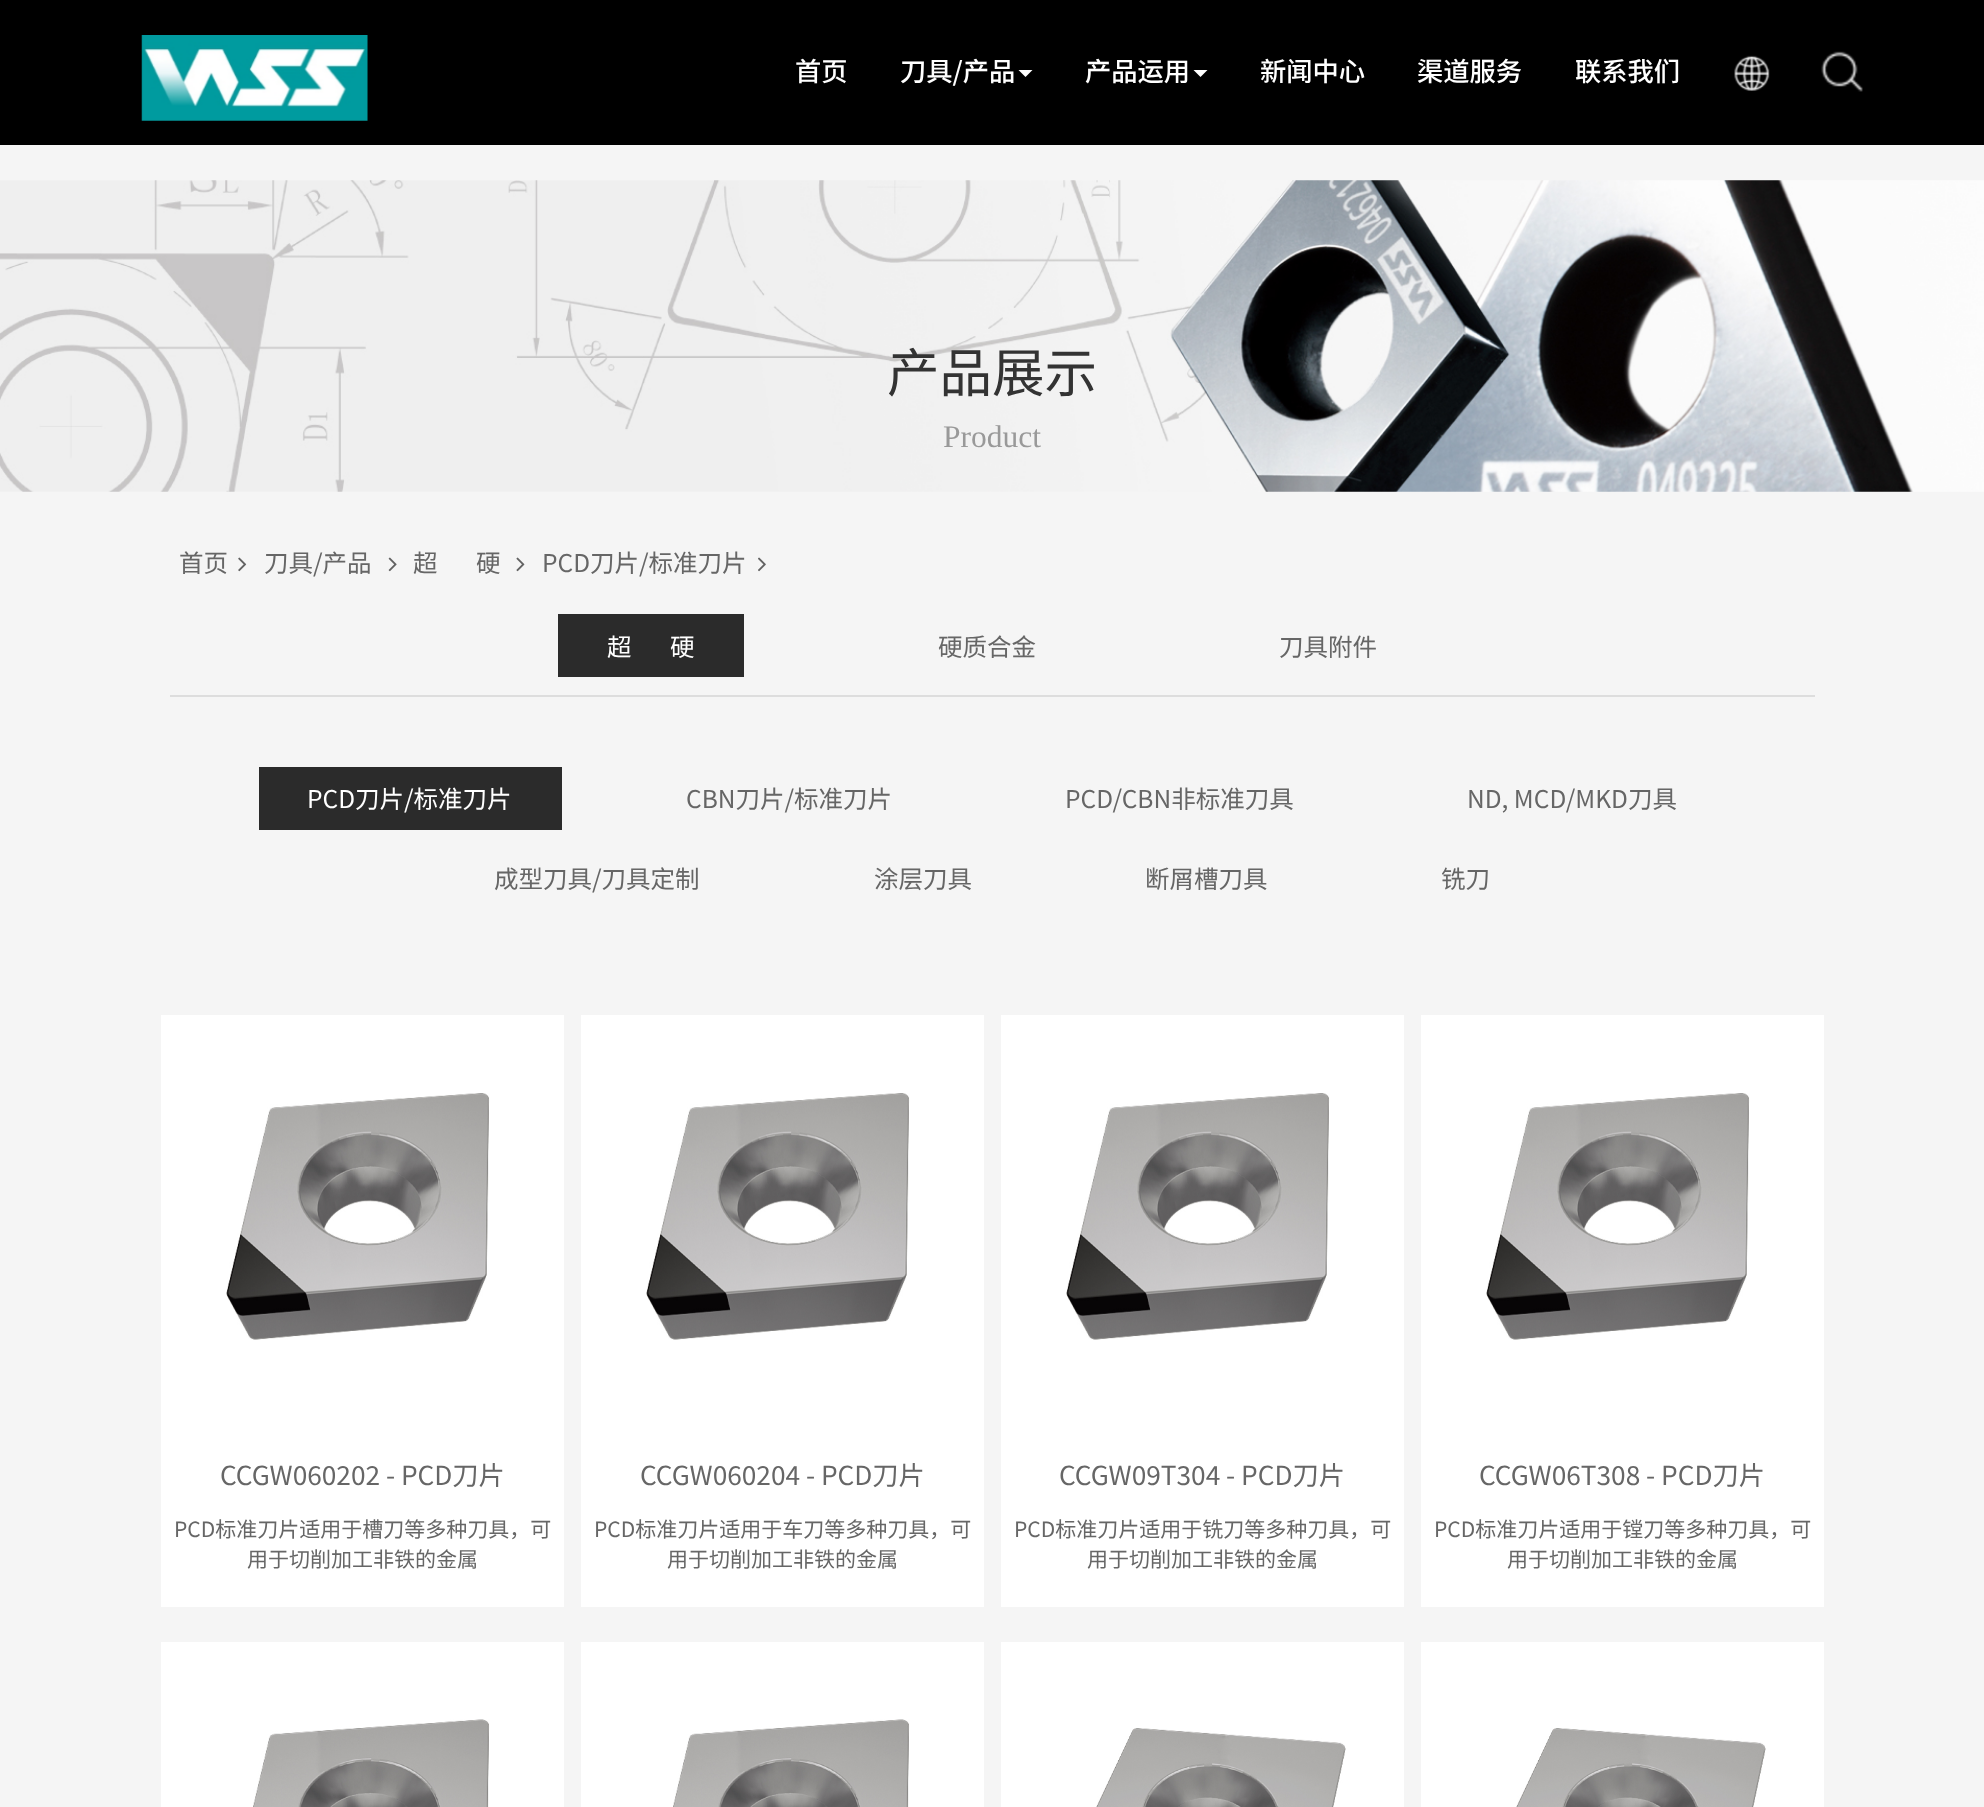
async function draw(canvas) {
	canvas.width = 1984;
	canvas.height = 1807;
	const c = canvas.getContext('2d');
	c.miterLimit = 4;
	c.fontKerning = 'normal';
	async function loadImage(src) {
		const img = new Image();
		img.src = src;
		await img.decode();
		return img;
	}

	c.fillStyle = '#f5f5f5';
	c.fillRect(0, 0, 1984, 1807);
	c.fillStyle = '#000';
	c.fillRect(0, 0, 1984, 145);
	c.drawImage(await loadImage('img1.png'), 141, 35, 227, 86);
	c.font = '500 26.25px Noto Sans SC';
	c.fillStyle = '#fff';
	c.fillText('首页', 795, 81);
	c.fillText('刀具/产品', 900, 81);
	c.beginPath();
	c.moveTo(1018.5, 70);
	c.lineTo(1032.5, 70);
	c.lineTo(1025.5, 77);
	c.closePath();
	c.fill();
	c.fillText('产品运用', 1085, 81);
	c.beginPath();
	c.moveTo(1193.5, 70);
	c.lineTo(1207.5, 70);
	c.lineTo(1200.5, 77);
	c.closePath();
	c.fill();
	for (const [text, x, y] of [
		['新闻中心', 1260, 81],
		['渠道服务', 1417, 81],
		['联系我们', 1575, 81],
	]) {
		c.fillText(text, x, y);
	}
	c.drawImage(await loadImage('img2.png'), 1734, 55, 36, 36);
	c.drawImage(await loadImage('img3.png'), 1821, 51, 42, 41);
	c.drawImage(await loadImage('img4.png'), 0, 180, 1984, 312);
	c.font = '52.5px Noto Sans SC';
	c.fillStyle = '#333';
	c.fillText('产品展示', 887, 392);
	c.font = '31.5px Liberation Serif';
	c.fillStyle = '#999';
	c.fillText('Product', 943, 447);
	c.font = '24.5px Noto Sans SC';
	c.fillStyle = '#666';
	c.fillText('首页', 179, 572);
	c.drawImage(await loadImage('img5.png'), 238, 557, 9, 15);
	c.fillText('刀具/产品', 264, 572);
	c.drawImage(await loadImage('img6.png'), 388, 557, 9, 15);
	c.fillText('超       硬', 413, 572);
	c.drawImage(await loadImage('img7.png'), 516, 557, 9, 15);
	c.fillText('PCD刀片/标准刀片', 542, 572);
	c.drawImage(await loadImage('img8.png'), 758, 557, 8, 15);
	c.fillStyle = '#ddd';
	c.fillRect(170, 695, 1645, 2);
	c.fillStyle = '#2b2b2b';
	c.fillRect(558, 614, 186, 63);
	c.fillStyle = '#fff';
	c.fillText('超       硬', 607, 656);
	c.fillStyle = '#666';
	c.fillText('硬质合金', 938, 656);
	c.fillText('刀具附件', 1279, 656);
	c.fillStyle = '#2b2b2b';
	c.fillRect(259, 767, 303, 63);
	c.fillStyle = '#fff';
	c.fillText('PCD刀片/标准刀片', 307, 808);
	c.fillStyle = '#666';
	for (const [text, x, y] of [
		['CBN刀片/标准刀片', 686, 808],
		['PCD/CBN非标准刀具', 1065, 808],
		['ND, MCD/MKD刀具', 1467, 808],
		['成型刀具/刀具定制', 494, 888],
		['涂层刀具', 874, 888],
		['断屑槽刀具', 1145, 888],
		['铣刀', 1441, 888],
	]) {
		c.fillText(text, x, y);
	}
	c.fillStyle = '#fff';
	c.fillRect(161, 1015, 403, 592);
	c.drawImage(await loadImage('img9.png'), 226, 1093, 264, 247);
	c.font = '26.25px Noto Sans SC';
	c.fillStyle = '#666';
	c.fillText('CCGW060202 - PCD刀片', 220, 1485);
	c.font = '21px Noto Sans SC';
	c.fillText('PCD标准刀片适用于槽刀等多种刀具，可', 174, 1537);
	c.fillText('用于切削加工非铁的金属', 247, 1567);
	c.fillStyle = '#fff';
	c.fillRect(581, 1015, 403, 592);
	c.drawImage(await loadImage('img10.png'), 646, 1093, 264, 247);
	c.font = '26.25px Noto Sans SC';
	c.fillStyle = '#666';
	c.fillText('CCGW060204 - PCD刀片', 640, 1485);
	c.font = '21px Noto Sans SC';
	c.fillText('PCD标准刀片适用于车刀等多种刀具，可', 594, 1537);
	c.fillText('用于切削加工非铁的金属', 667, 1567);
	c.fillStyle = '#fff';
	c.fillRect(1001, 1015, 403, 592);
	c.drawImage(await loadImage('img9.png'), 1066, 1093, 264, 247);
	c.font = '26.25px Noto Sans SC';
	c.fillStyle = '#666';
	c.fillText('CCGW09T304 - PCD刀片', 1059, 1485);
	c.font = '21px Noto Sans SC';
	c.fillText('PCD标准刀片适用于铣刀等多种刀具，可', 1014, 1537);
	c.fillText('用于切削加工非铁的金属', 1087, 1567);
	c.fillStyle = '#fff';
	c.fillRect(1421, 1015, 403, 592);
	c.drawImage(await loadImage('img9.png'), 1486, 1093, 264, 247);
	c.font = '26.25px Noto Sans SC';
	c.fillStyle = '#666';
	c.fillText('CCGW06T308 - PCD刀片', 1479, 1485);
	c.font = '21px Noto Sans SC';
	c.fillText('PCD标准刀片适用于镗刀等多种刀具，可', 1434, 1537);
	c.fillText('用于切削加工非铁的金属', 1507, 1567);
	c.fillStyle = '#fff';
	c.fillRect(161, 1642, 403, 165);
	c.drawImage(await loadImage('img11.png'), 253, 1719, 237, 88);
	c.fillRect(581, 1642, 403, 165);
	c.drawImage(await loadImage('img12.png'), 673, 1719, 237, 88);
	c.fillRect(1001, 1642, 403, 165);
	c.drawImage(await loadImage('img13.png'), 1096, 1728, 250, 79);
	c.fillRect(1421, 1642, 403, 165);
	c.drawImage(await loadImage('img13.png'), 1516, 1728, 250, 79);
}

draw(document.querySelector('canvas'));
